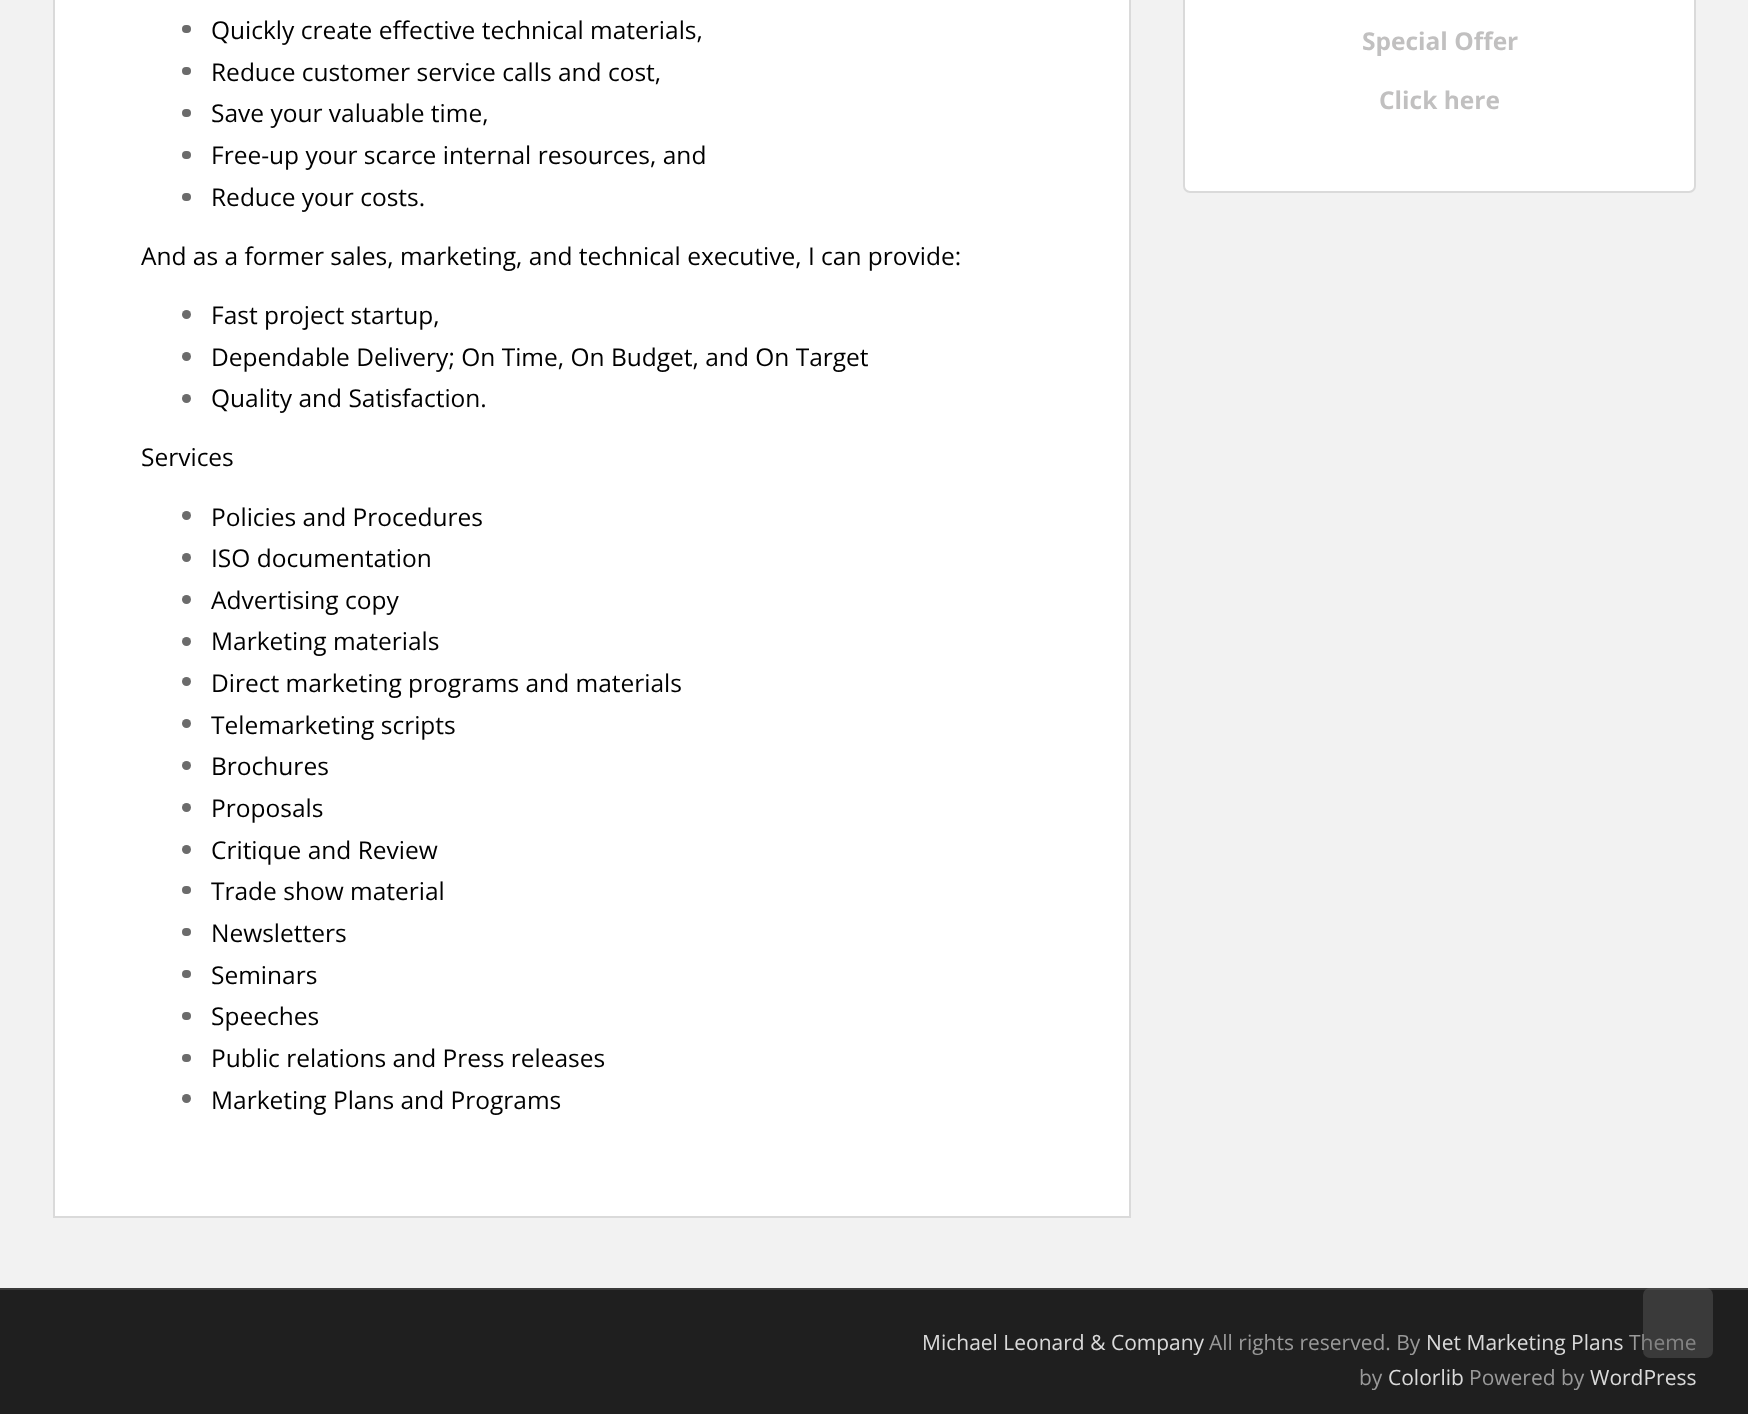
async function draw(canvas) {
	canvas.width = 1748;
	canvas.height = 1414;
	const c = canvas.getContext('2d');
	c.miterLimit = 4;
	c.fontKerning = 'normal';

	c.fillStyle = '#f2f2f2';
	c.fillRect(0, 0, 1748, 1414);
	c.fillStyle = '#fff';
	c.beginPath();
	c.rect(54, -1, 1076, 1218);
	c.fill();
	c.strokeStyle = '#dadada';
	c.lineWidth = 2;
	c.stroke();
	c.fillStyle = '#6b6b6b';
	c.beginPath();
	c.roundRect(182, 25, 9, 8, 4);
	c.fill();
	c.font = '24.5px Open Sans';
	c.fillStyle = '#000';
	c.fillText('Quickly create effective technical materials,', 211, 39);
	c.fillStyle = '#6b6b6b';
	c.beginPath();
	c.roundRect(182, 67, 9, 8, 4);
	c.fill();
	c.fillStyle = '#000';
	c.fillText('Reduce customer service calls and cost,', 211, 81);
	c.fillStyle = '#6b6b6b';
	c.beginPath();
	c.roundRect(182, 109, 9, 8, 4);
	c.fill();
	c.fillStyle = '#000';
	c.fillText('Save your valuable time,', 211, 122);
	c.fillStyle = '#6b6b6b';
	c.beginPath();
	c.roundRect(182, 151, 9, 8, 4);
	c.fill();
	c.fillStyle = '#000';
	c.fillText('Free-up your scarce internal resources, and', 211, 164);
	c.fillStyle = '#6b6b6b';
	c.beginPath();
	c.roundRect(182, 193, 9, 8, 4);
	c.fill();
	c.fillStyle = '#000';
	c.fillText('Reduce your costs.', 211, 206);
	c.fillText('And as a former sales, marketing, and technical executive, I can provide:', 141, 265);
	c.fillStyle = '#6b6b6b';
	c.beginPath();
	c.arc(186.5, 314.5, 4.5, 0, 2 * Math.PI);
	c.fill();
	c.fillStyle = '#000';
	c.fillText('Fast project startup,', 211, 324);
	c.fillStyle = '#6b6b6b';
	c.beginPath();
	c.arc(186.5, 356.5, 4.5, 0, 2 * Math.PI);
	c.fill();
	c.fillStyle = '#000';
	c.fillText('Dependable Delivery; On Time, On Budget, and On Target', 211, 366);
	c.fillStyle = '#6b6b6b';
	c.beginPath();
	c.arc(186.5, 398.5, 4.5, 0, 2 * Math.PI);
	c.fill();
	c.fillStyle = '#000';
	c.fillText('Quality and Satisfaction.', 211, 407);
	c.fillText('Services', 141, 466);
	c.fillStyle = '#6b6b6b';
	c.beginPath();
	c.arc(186.5, 515.5, 4.5, 0, 2 * Math.PI);
	c.fill();
	c.fillStyle = '#000';
	c.fillText('Policies and Procedures', 211, 526);
	c.fillStyle = '#6b6b6b';
	c.beginPath();
	c.arc(186.5, 557.5, 4.5, 0, 2 * Math.PI);
	c.fill();
	c.fillStyle = '#000';
	c.fillText('ISO documentation', 211, 567);
	c.fillStyle = '#6b6b6b';
	c.beginPath();
	c.arc(186.5, 599.5, 4.5, 0, 2 * Math.PI);
	c.fill();
	c.fillStyle = '#000';
	c.fillText('Advertising copy', 211, 609);
	c.fillStyle = '#6b6b6b';
	c.beginPath();
	c.arc(186.5, 641.5, 4.5, 0, 2 * Math.PI);
	c.fill();
	c.fillStyle = '#000';
	c.fillText('Marketing materials', 211, 650);
	c.fillStyle = '#6b6b6b';
	c.beginPath();
	c.arc(186.5, 681.5, 4.5, 0, 2 * Math.PI);
	c.fill();
	c.fillStyle = '#000';
	c.fillText('Direct marketing programs and materials', 211, 692);
	c.fillStyle = '#6b6b6b';
	c.beginPath();
	c.arc(186.5, 723.5, 4.5, 0, 2 * Math.PI);
	c.fill();
	c.fillStyle = '#000';
	c.fillText('Telemarketing scripts', 211, 734);
	c.fillStyle = '#6b6b6b';
	c.beginPath();
	c.arc(186.5, 765.5, 4.5, 0, 2 * Math.PI);
	c.fill();
	c.fillStyle = '#000';
	c.fillText('Brochures', 211, 775);
	c.fillStyle = '#6b6b6b';
	c.beginPath();
	c.arc(186.5, 807.5, 4.5, 0, 2 * Math.PI);
	c.fill();
	c.fillStyle = '#000';
	c.fillText('Proposals', 211, 817);
	c.fillStyle = '#6b6b6b';
	c.beginPath();
	c.arc(186.5, 849.5, 4.5, 0, 2 * Math.PI);
	c.fill();
	c.fillStyle = '#000';
	c.fillText('Critique and Review', 211, 859);
	c.fillStyle = '#6b6b6b';
	c.beginPath();
	c.roundRect(182, 886, 9, 8, 4);
	c.fill();
	c.fillStyle = '#000';
	c.fillText('Trade show material', 211, 900);
	c.fillStyle = '#6b6b6b';
	c.beginPath();
	c.roundRect(182, 928, 9, 8, 4);
	c.fill();
	c.fillStyle = '#000';
	c.fillText('Newsletters', 211, 942);
	c.fillStyle = '#6b6b6b';
	c.beginPath();
	c.roundRect(182, 970, 9, 8, 4);
	c.fill();
	c.fillStyle = '#000';
	c.fillText('Seminars', 211, 984);
	c.fillStyle = '#6b6b6b';
	c.beginPath();
	c.roundRect(182, 1012, 9, 8, 4);
	c.fill();
	c.fillStyle = '#000';
	c.fillText('Speeches', 211, 1025);
	c.fillStyle = '#6b6b6b';
	c.beginPath();
	c.roundRect(182, 1054, 9, 8, 4);
	c.fill();
	c.fillStyle = '#000';
	c.fillText('Public relations and Press releases', 211, 1067);
	c.fillStyle = '#6b6b6b';
	c.beginPath();
	c.arc(186.5, 1098.5, 4.5, 0, 2 * Math.PI);
	c.fill();
	c.fillStyle = '#000';
	c.fillText('Marketing Plans and Programs', 211, 1109);
	c.fillStyle = '#fff';
	c.beginPath();
	c.roundRect(1184, -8, 511, 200, 6);
	c.fill();
	c.stroke();
	c.font = 'bold 24.5px Open Sans';
	c.fillStyle = '#c1c0c0';
	c.fillText('Special Offer', 1362, 50);
	c.fillText('Click here', 1379, 109);
	c.fillStyle = '#1f1f1f';
	c.fillRect(0, 1290, 1748, 124);
	c.fillStyle = '#3a3a3a';
	c.fillRect(0, 1288, 1748, 2);
	c.font = '21px Open Sans';
	c.fillStyle = '#999';
	c.fillText('Theme', 1629, 1350);
	c.fillStyle = '#64646466';
	c.beginPath();
	c.roundRect(1643, 1288, 70, 70, 7);
	c.fill();
	c.fillStyle = '#dadada';
	c.fillText('Michael Leonard & Company', 922, 1350);
	c.fillStyle = '#999';
	c.fillText('All rights reserved. By', 1209, 1350);
	c.fillStyle = '#dadada';
	c.fillText('Net Marketing Plans', 1426, 1350);
	c.fillStyle = '#999';
	c.fillText('by', 1359, 1385);
	c.fillStyle = '#dadada';
	c.fillText('Colorlib', 1388, 1385);
	c.fillStyle = '#999';
	c.fillText('Powered by', 1469, 1385);
	c.fillStyle = '#dadada';
	c.fillText('WordPress', 1590, 1385);
}

draw(document.querySelector('canvas'));
